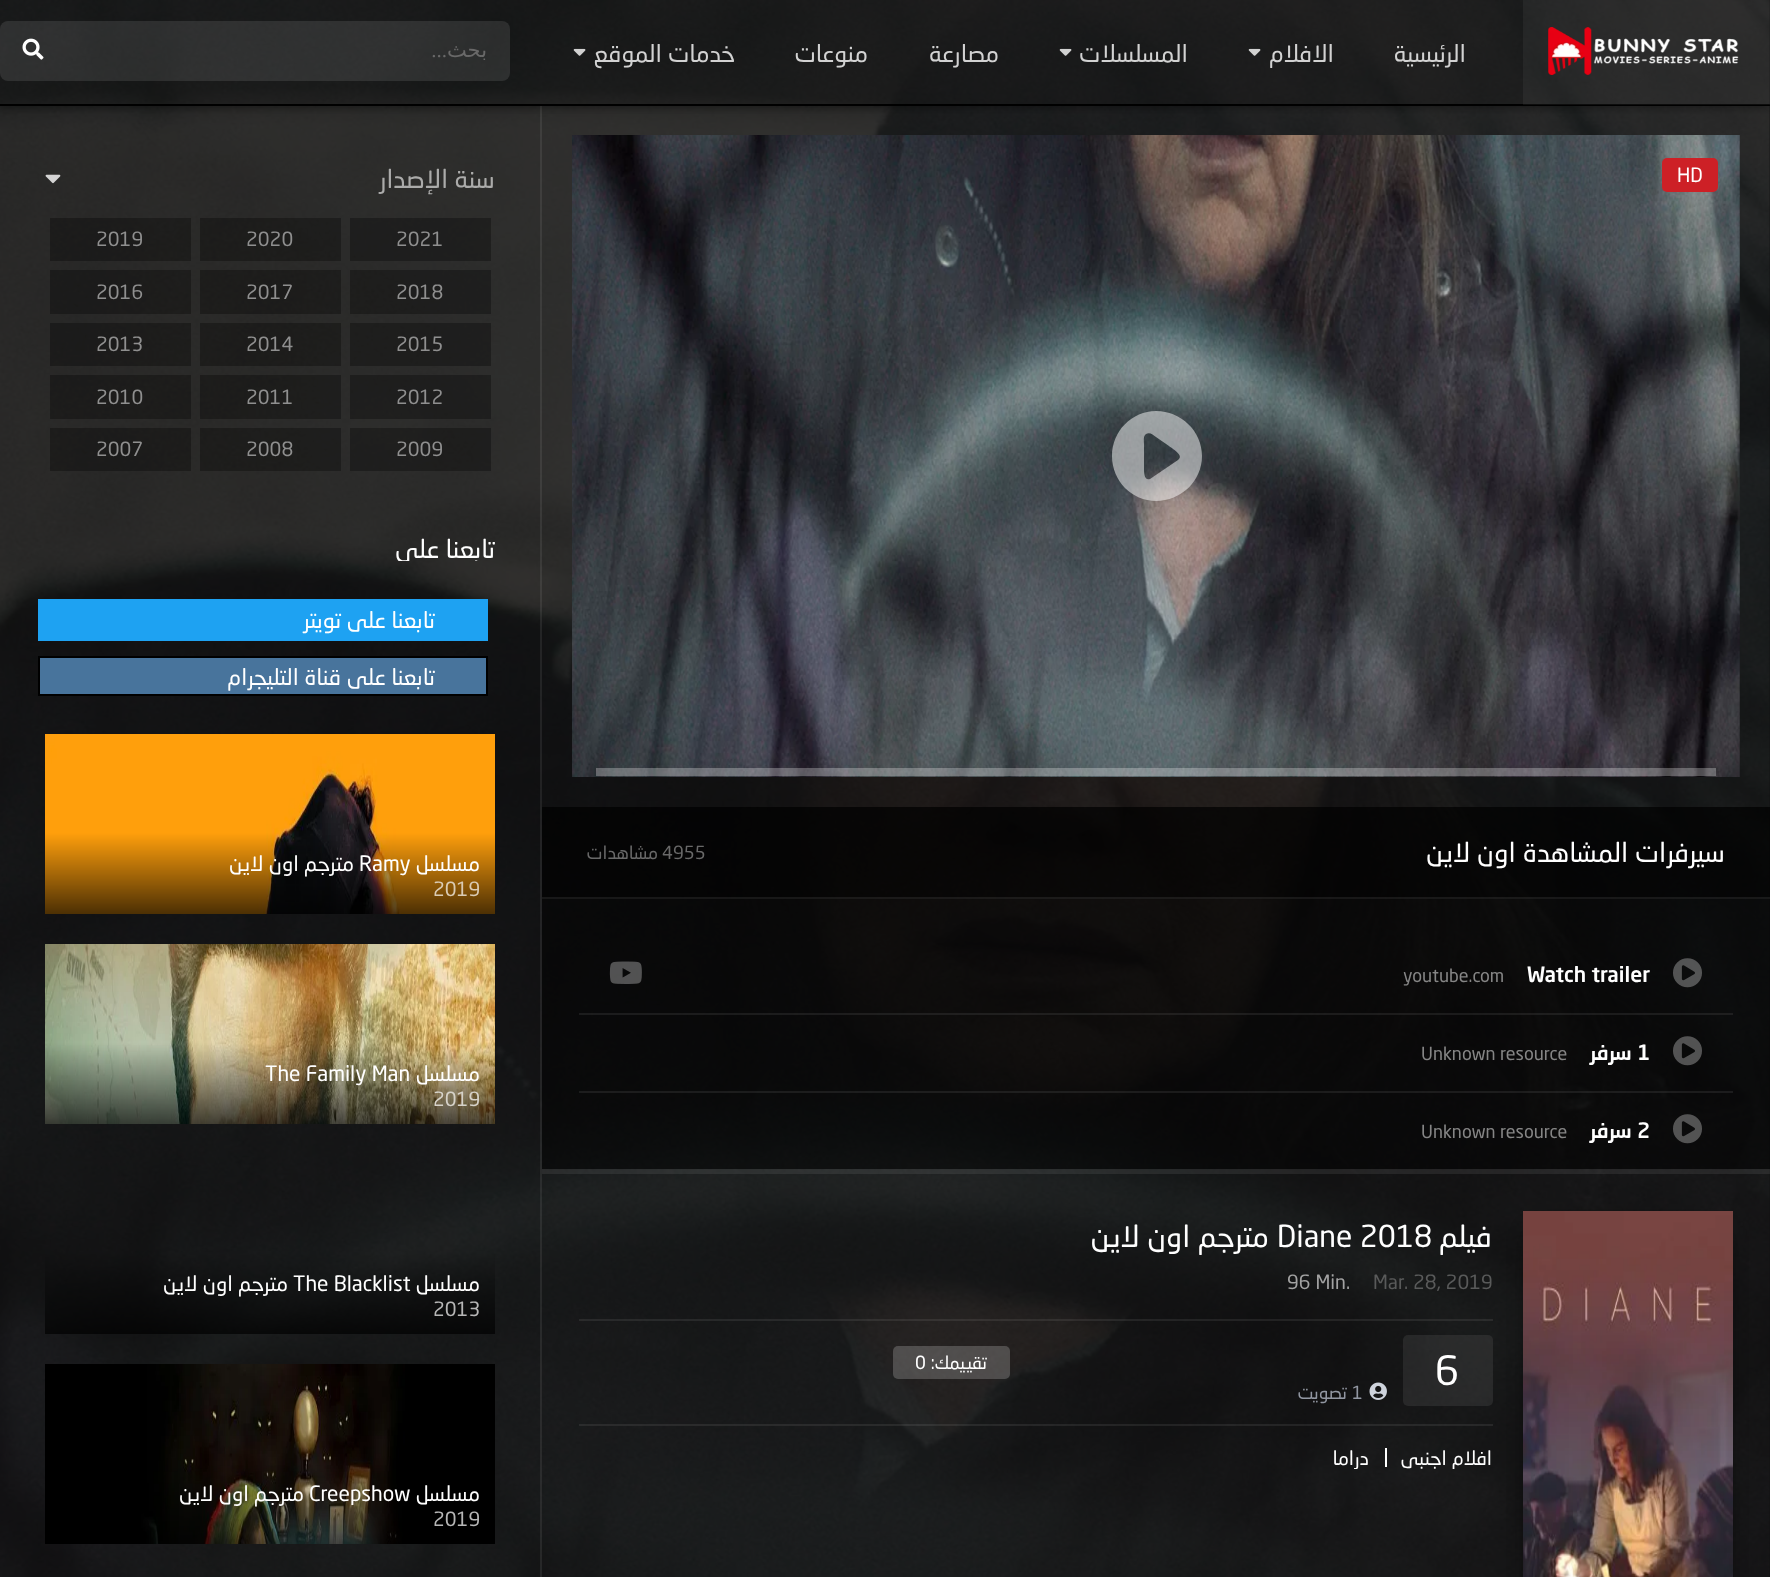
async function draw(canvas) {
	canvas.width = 1770;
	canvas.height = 1577;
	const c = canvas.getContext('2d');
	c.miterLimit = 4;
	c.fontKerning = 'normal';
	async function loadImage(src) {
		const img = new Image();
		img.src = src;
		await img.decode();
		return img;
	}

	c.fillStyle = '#101010';
	c.fillRect(0, 0, 1770, 1577);
	c.drawImage(await loadImage('img1.png'), 0, 0, 1770, 1577);
	c.fillStyle = '#ffffff14';
	c.fillRect(540, 105, 2, 1472);
	c.save();
	c.beginPath();
	c.rect(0, 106, 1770, 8);
	c.clip();
	c.fillStyle = '#00000066';
	c.filter = 'blur(4px)';
	c.beginPath();
	c.rect(0, 2, 1770, 105);
	c.fill();
	c.filter = 'none';
	c.restore();
	for (const [x, y, w, h, color] of [
		[0, 0, 1770, 104, '#0f0f0fe6'],
		[0, 104, 1770, 2, '#000'],
		[1523, 0, 247, 105, '#ffffff0d'],
	]) {
		c.fillStyle = color;
		c.fillRect(x, y, w, h);
	}
	c.drawImage(await loadImage('img2.png'), 1548, 27, 191, 48);
	c.direction = 'rtl';
	c.font = '24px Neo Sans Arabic';
	c.fillStyle = '#d2d2d2';
	c.fillText('الرئيسية', 1466, 62);
	c.fillText('الافلام', 1334, 62);
	c.drawImage(await loadImage('img3.png'), 1248, 48, 13, 8);
	c.fillText('المسلسلات', 1188, 62);
	c.drawImage(await loadImage('img4.png'), 1059, 48, 13, 8);
	for (const [text, x, y] of [
		['مصارعة', 999, 62],
		['منوعات', 868, 62],
		['خدمات الموقع', 735, 62],
	]) {
		c.fillText(text, x, y);
	}
	c.drawImage(await loadImage('img5.png'), 573, 48, 13, 8);
	c.fillStyle = '#ffffff1a';
	c.beginPath();
	c.roundRect(0, 21, 510, 60, 8);
	c.fill();
	c.font = '21px DejaVu Sans';
	c.fillStyle = '#696969';
	c.fillText('بحث', 487, 57);
	c.font = '21px Liberation Serif';
	c.fillText('...', 447, 57);
	c.drawImage(await loadImage('img6.png'), 22, 38, 22, 22);
	c.drawImage(await loadImage('img7.png'), 572, 135, 1168, 642);
	c.fillStyle = '#cd2026';
	c.beginPath();
	c.roundRect(1662, 158, 56, 34, 5);
	c.fill();
	c.direction = 'ltr';
	c.font = '19.5px Neo Sans Arabic';
	c.fillStyle = '#fff';
	c.fillText('HD', 1677, 182);
	c.fillStyle = '#ffffff80';
	c.beginPath();
	c.moveTo(1156, 411);
	c.bezierCurveTo(1132, 411, 1112, 431, 1112, 456);
	c.bezierCurveTo(1112, 481, 1132, 501, 1156, 501);
	c.bezierCurveTo(1181, 501, 1202, 481, 1202, 456);
	c.bezierCurveTo(1202, 431, 1181, 411, 1156, 411);
	c.closePath();
	c.moveTo(1178, 460);
	c.lineTo(1150, 479);
	c.bezierCurveTo(1144, 481, 1144, 472, 1144, 468);
	c.lineTo(1144, 444);
	c.bezierCurveTo(1144, 441, 1143, 436, 1146, 434);
	c.bezierCurveTo(1150, 432, 1153, 435, 1156, 437);
	c.lineTo(1169, 446);
	c.bezierCurveTo(1171, 448, 1185, 455, 1178, 460);
	c.closePath();
	c.fill();
	for (const [x, y, w, h, color] of [
		[596, 768, 1120, 8, '#ffffff47'],
		[542, 1169, 1228, 5, '#ffffff14'],
		[542, 807, 1228, 92, '#000000b3'],
		[542, 897, 1228, 2, '#ffffff14'],
	]) {
		c.fillStyle = color;
		c.fillRect(x, y, w, h);
	}
	c.direction = 'rtl';
	c.font = '27px Neo Sans Arabic';
	c.fillStyle = '#fff';
	c.fillText('سيرفرات المشاهدة اون لاين', 1725, 862);
	c.direction = 'ltr';
	c.font = '18px Neo Sans Arabic';
	c.fillStyle = '#696969';
	c.fillText('4955', 662, 859);
	c.direction = 'rtl';
	c.fillText('مشاهدات', 658, 859);
	c.fillStyle = '#00000080';
	c.fillRect(542, 899, 1228, 270);
	c.fillStyle = '#ffffff14';
	c.fillRect(579, 1013, 1154, 2);
	c.drawImage(await loadImage('img8.png'), 1673, 958, 29, 30);
	c.direction = 'ltr';
	c.font = '500 21px Neo Sans Arabic';
	c.fillStyle = '#fff';
	c.fillText('Watch trailer', 1527, 982);
	c.font = '18px Neo Sans Arabic';
	c.fillStyle = '#858585';
	c.fillText('youtube.com', 1403, 982);
	c.drawImage(await loadImage('img9.png'), 609, 961, 33, 23);
	c.fillStyle = '#ffffff14';
	c.fillRect(579, 1091, 1154, 2);
	c.drawImage(await loadImage('img10.png'), 1673, 1036, 29, 30);
	c.font = '500 21px Neo Sans Arabic';
	c.fillStyle = '#fff';
	c.fillText('1', 1637, 1060);
	c.direction = 'rtl';
	c.fillText('سرفر', 1632, 1060);
	c.direction = 'ltr';
	c.font = '18px Neo Sans Arabic';
	c.fillStyle = '#858585';
	c.fillText('Unknown resource', 1421, 1060);
	c.drawImage(await loadImage('img11.png'), 1673, 1114, 29, 30);
	c.font = '500 21px Neo Sans Arabic';
	c.fillStyle = '#fff';
	c.fillText('2', 1637, 1138);
	c.direction = 'rtl';
	c.fillText('سرفر', 1632, 1138);
	c.direction = 'ltr';
	c.font = '18px Neo Sans Arabic';
	c.fillStyle = '#858585';
	c.fillText('Unknown resource', 1421, 1138);
	c.fillStyle = '#000';
	c.filter = 'blur(11px)';
	c.beginPath();
	c.rect(1533, 1236, 189, 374);
	c.fill();
	c.filter = 'none';
	c.drawImage(await loadImage('img12.png'), 1523, 1211, 210, 366);
	c.direction = 'rtl';
	c.font = '30px Neo Sans Arabic';
	c.fillStyle = '#fff';
	c.fillText('فيلم', 1492, 1247);
	c.direction = 'ltr';
	c.fillText('Diane 2018', 1277, 1247);
	c.direction = 'rtl';
	c.fillText('مترجم اون لاين', 1269, 1247);
	c.direction = 'ltr';
	c.font = '19.5px Neo Sans Arabic';
	c.fillStyle = '#595a5a';
	c.fillText('Mar. 28, 2019', 1373, 1289);
	c.fillStyle = '#a2a2a2';
	c.fillText('96 Min.', 1287, 1289);
	c.fillStyle = '#ffffff14';
	c.fillRect(579, 1319, 914, 2);
	c.fillRect(579, 1424, 914, 2);
	c.beginPath();
	c.roundRect(1403, 1335, 90, 71, 5);
	c.fill();
	c.font = '40px Neo Sans Arabic';
	c.fillStyle = '#fff';
	c.fillText('6', 1435, 1385);
	c.drawImage(await loadImage('img13.png'), 1369, 1382, 18, 18);
	c.font = '18px Neo Sans Arabic';
	c.fillStyle = '#9297a2';
	c.fillText('1', 1352, 1399);
	c.direction = 'rtl';
	c.fillText('تصويت', 1347, 1399);
	c.fillStyle = '#ffffff33';
	c.beginPath();
	c.roundRect(893, 1346, 117, 33, 5);
	c.fill();
	c.fillStyle = '#fff';
	c.fillText('تقييمك:', 987, 1369);
	c.direction = 'ltr';
	c.fillText('0', 915, 1369);
	c.save();
	c.beginPath();
	c.rect(579, 1440, 914, 29);
	c.clip();
	c.direction = 'rtl';
	c.font = '19.5px Neo Sans Arabic';
	c.fillText('افلام اجنبي', 1492, 1465);
	c.restore();
	c.fillRect(1385, 1448, 2, 19);
	c.save();
	c.beginPath();
	c.rect(579, 1440, 914, 29);
	c.clip();
	c.direction = 'rtl';
	c.font = '19.5px Neo Sans Arabic';
	c.fillText('دراما', 1369, 1465);
	c.restore();
	c.direction = 'rtl';
	c.font = '25.5px Neo Sans Arabic';
	c.fillStyle = '#ababaa';
	c.fillText('سنة الإصدار', 495, 188);
	c.drawImage(await loadImage('img14.png'), 45, 174, 16, 10);
	c.fillStyle = '#0000004d';
	c.fillRect(350, 218, 141, 43);
	c.direction = 'ltr';
	c.font = '19.5px Neo Sans Arabic';
	c.fillStyle = '#8f8f8f';
	c.fillText('2021', 396, 246);
	c.fillStyle = '#0000004d';
	c.fillRect(200, 218, 141, 43);
	c.fillStyle = '#8f8f8f';
	c.fillText('2020', 246, 246);
	c.fillStyle = '#0000004d';
	c.fillRect(50, 218, 141, 43);
	c.fillStyle = '#8f8f8f';
	c.fillText('2019', 96, 246);
	c.fillStyle = '#0000004d';
	c.fillRect(350, 270, 141, 44);
	c.fillStyle = '#8f8f8f';
	c.fillText('2018', 396, 299);
	c.fillStyle = '#0000004d';
	c.fillRect(200, 270, 141, 44);
	c.fillStyle = '#8f8f8f';
	c.fillText('2017', 246, 299);
	c.fillStyle = '#0000004d';
	c.fillRect(50, 270, 141, 44);
	c.fillStyle = '#8f8f8f';
	c.fillText('2016', 96, 299);
	c.fillStyle = '#0000004d';
	c.fillRect(350, 323, 141, 43);
	c.fillStyle = '#8f8f8f';
	c.fillText('2015', 396, 351);
	c.fillStyle = '#0000004d';
	c.fillRect(200, 323, 141, 43);
	c.fillStyle = '#8f8f8f';
	c.fillText('2014', 246, 351);
	c.fillStyle = '#0000004d';
	c.fillRect(50, 323, 141, 43);
	c.fillStyle = '#8f8f8f';
	c.fillText('2013', 96, 351);
	c.fillStyle = '#0000004d';
	c.fillRect(350, 375, 141, 44);
	c.fillStyle = '#8f8f8f';
	c.fillText('2012', 396, 404);
	c.fillStyle = '#0000004d';
	c.fillRect(200, 375, 141, 44);
	c.fillStyle = '#8f8f8f';
	c.fillText('2011', 246, 404);
	c.fillStyle = '#0000004d';
	c.fillRect(50, 375, 141, 44);
	c.fillStyle = '#8f8f8f';
	c.fillText('2010', 96, 404);
	c.fillStyle = '#0000004d';
	c.fillRect(350, 428, 141, 43);
	c.fillStyle = '#8f8f8f';
	c.fillText('2009', 396, 456);
	c.fillStyle = '#0000004d';
	c.fillRect(200, 428, 141, 43);
	c.fillStyle = '#8f8f8f';
	c.fillText('2008', 246, 456);
	c.fillStyle = '#0000004d';
	c.fillRect(50, 428, 141, 43);
	c.fillStyle = '#8f8f8f';
	c.fillText('2007', 96, 456);
	c.save();
	c.beginPath();
	c.rect(45, 536, 450, 25);
	c.clip();
	c.direction = 'rtl';
	c.font = '25.5px Neo Sans Arabic';
	c.fillStyle = '#fff';
	c.fillText('تابعنا على', 495, 558);
	c.restore();
	c.fillStyle = '#1ea2f2';
	c.fillRect(38, 599, 450, 42);
	c.direction = 'rtl';
	c.font = '22.5px Neo Sans Arabic';
	c.fillStyle = '#fff';
	c.fillText('تابعنا على تويتر', 435, 628);
	c.fillStyle = '#48749c';
	c.beginPath();
	c.rect(39, 657, 448, 38);
	c.fill();
	c.strokeStyle = '#000';
	c.lineWidth = 2;
	c.stroke();
	c.fillStyle = '#fff';
	c.fillText('تابعنا على قناة التليجرام', 435, 685);
	c.drawImage(await loadImage('img15.png'), 45, 734, 450, 180);
	c.font = '21px Neo Sans Arabic';
	c.fillText('مسلسل', 480, 871);
	c.direction = 'ltr';
	c.fillText('Ramy', 359, 871);
	c.direction = 'rtl';
	c.fillText('مترجم اون لاين', 354, 871);
	c.direction = 'ltr';
	c.font = '19.5px Neo Sans Arabic';
	c.fillStyle = '#dacbb4';
	c.fillText('2019', 433, 896);
	c.drawImage(await loadImage('img16.png'), 45, 944, 450, 180);
	c.direction = 'rtl';
	c.font = '21px Neo Sans Arabic';
	c.fillStyle = '#fff';
	c.fillText('مسلسل', 480, 1081);
	c.direction = 'ltr';
	c.fillText('The Family Man', 265, 1081);
	c.font = '19.5px Neo Sans Arabic';
	c.fillStyle = '#d6d2c9';
	c.fillText('2019', 433, 1106);
	c.direction = 'rtl';
	c.font = '21px Neo Sans Arabic';
	c.fillStyle = '#fff';
	c.fillText('مسلسل', 480, 1291);
	c.direction = 'ltr';
	c.fillText('The Blacklist', 293, 1291);
	c.direction = 'rtl';
	c.fillText('مترجم اون لاين', 288, 1291);
	c.direction = 'ltr';
	c.font = '19.5px Neo Sans Arabic';
	c.fillStyle = '#b6b6b6';
	c.fillText('2013', 433, 1316);
	c.drawImage(await loadImage('img17.png'), 45, 1364, 450, 180);
	c.direction = 'rtl';
	c.font = '21px Neo Sans Arabic';
	c.fillStyle = '#fff';
	c.fillText('مسلسل', 480, 1501);
	c.direction = 'ltr';
	c.fillText('Creepshow', 309, 1501);
	c.direction = 'rtl';
	c.fillText('مترجم اون لاين', 304, 1501);
	c.direction = 'ltr';
	c.font = '19.5px Neo Sans Arabic';
	c.fillStyle = '#b6b6b6';
	c.fillText('2019', 433, 1526);
}

draw(document.querySelector('canvas'));
